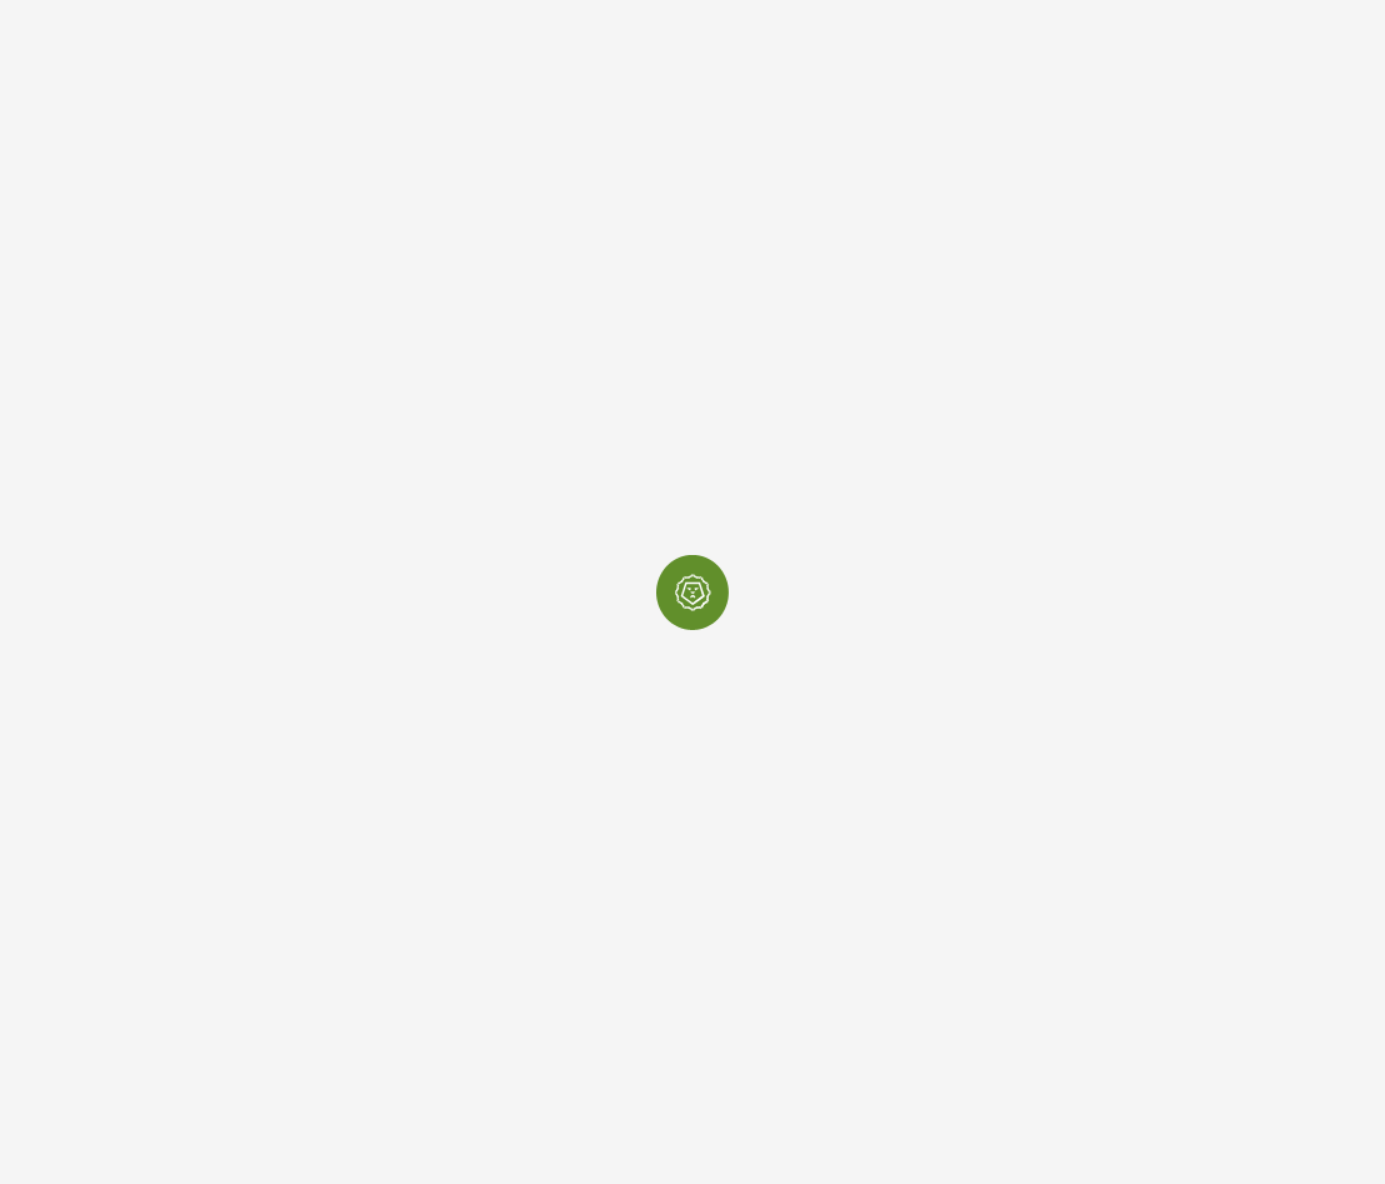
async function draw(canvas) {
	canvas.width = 1385;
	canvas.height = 1184;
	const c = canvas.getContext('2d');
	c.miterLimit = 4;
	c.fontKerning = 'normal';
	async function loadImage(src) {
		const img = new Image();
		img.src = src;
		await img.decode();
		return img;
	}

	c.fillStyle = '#f5f5f5';
	c.fillRect(0, 0, 1385, 1184);
	c.drawImage(await loadImage('img1.png'), 656, 554, 73, 77);
}

draw(document.querySelector('canvas'));
